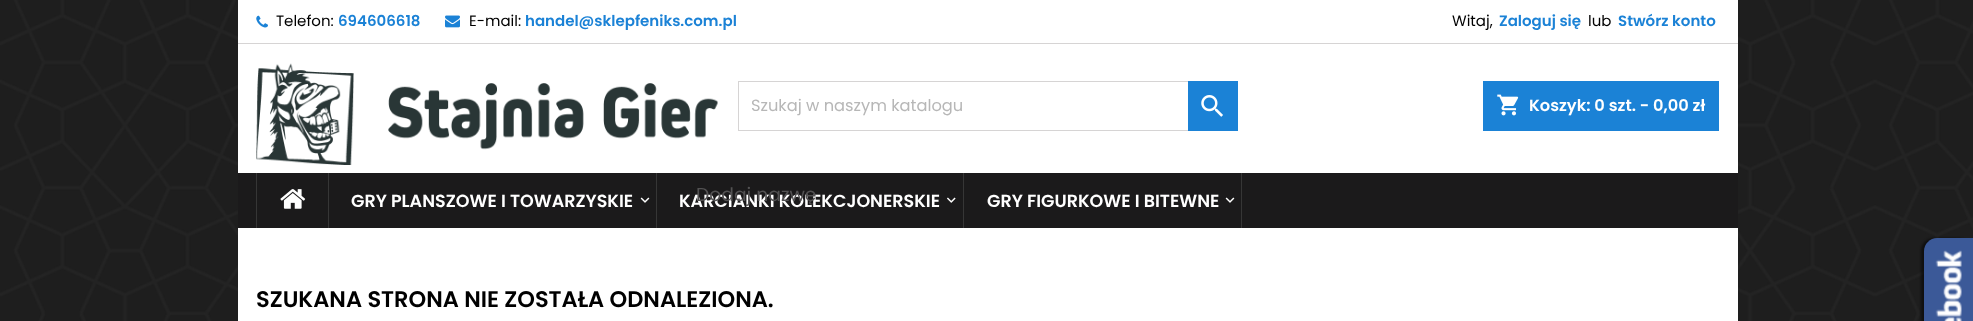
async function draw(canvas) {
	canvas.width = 1973;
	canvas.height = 321;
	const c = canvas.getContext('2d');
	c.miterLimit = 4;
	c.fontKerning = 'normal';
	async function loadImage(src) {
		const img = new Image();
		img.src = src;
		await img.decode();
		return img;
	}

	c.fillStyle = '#000';
	c.fillRect(0, 0, 1973, 321);
	c.drawImage(await loadImage('img1.png'), 0, 0, 1973, 321);
	c.fillStyle = '#fff';
	c.fillRect(238, 0, 1500, 321);
	c.fillStyle = '#d6d4d4';
	c.fillRect(238, 43, 1500, 1);
	c.drawImage(await loadImage('img2.png'), 256, 15, 12, 13);
	c.font = '15px Poppins';
	c.fillStyle = '#000';
	c.fillText('Telefon:', 276, 26);
	c.font = '600 15px Poppins';
	c.fillStyle = '#1b82d6';
	c.fillText('694606618', 338, 26);
	c.drawImage(await loadImage('img3.png'), 445, 15, 15, 13);
	c.font = '15px Poppins';
	c.fillStyle = '#000';
	c.fillText('E-mail:', 469, 26);
	c.font = '600 15px Poppins';
	c.fillStyle = '#1b82d6';
	c.fillText('handel@sklepfeniks.com.pl', 525, 26);
	c.font = '15px Poppins';
	c.fillStyle = '#000';
	c.fillText('Witaj,', 1452, 26);
	c.font = '600 15px Poppins';
	c.fillStyle = '#1b82d6';
	c.fillText('Zaloguj się', 1499, 26);
	c.font = '15px Poppins';
	c.fillStyle = '#000';
	c.fillText('lub', 1588, 26);
	c.font = '600 15px Poppins';
	c.fillStyle = '#1b82d6';
	c.fillText('Stwórz konto', 1618, 26);
	c.drawImage(await loadImage('img4.png'), 256, 63, 462, 102);
	c.strokeStyle = '#d6d4d4';
	c.strokeRect(738.5, 81.5, 499, 49);
	c.font = '16.25px Poppins';
	c.fillStyle = '#b7b7b7';
	c.fillText('Szukaj w naszym katalogu', 751, 111);
	c.fillStyle = '#1b82d6';
	c.fillRect(1188, 81, 50, 50);
	c.drawImage(await loadImage('img5.png'), 1201, 95, 22, 22);
	c.fillRect(1483, 81, 236, 50);
	c.drawImage(await loadImage('img6.png'), 1497, 94, 22, 22);
	c.font = '600 16.25px Poppins';
	c.fillStyle = '#fff';
	c.fillText('Koszyk: 0 szt. - 0,00 zł', 1529, 111);
	c.fillStyle = '#1b1a1b';
	c.fillRect(238, 173, 1500, 55);
	c.fillStyle = '#363636';
	c.fillRect(256, 173, 1, 55);
	c.drawImage(await loadImage('img7.png'), 280, 189, 26, 20);
	c.fillRect(328, 173, 1, 55);
	c.font = '600 17.5px Poppins';
	c.fillStyle = '#fff';
	c.fillText('GRY PLANSZOWE I TOWARZYSKIE', 351, 207);
	c.drawImage(await loadImage('img8.png'), 640, 197, 10, 6);
	c.fillStyle = '#363636';
	c.fillRect(656, 173, 1, 55);
	c.fillStyle = '#fff';
	c.fillText('KARCIANKI KOLEKCJONERSKIE', 679, 207);
	c.drawImage(await loadImage('img9.png'), 947, 197, 9, 6);
	c.fillStyle = '#363636';
	c.fillRect(1241, 173, 1, 55);
	c.fillRect(963, 173, 1, 55);
	c.fillStyle = '#fff';
	c.fillText('GRY FIGURKOWE I BITEWNE', 987, 207);
	c.drawImage(await loadImage('img8.png'), 1225, 197, 10, 6);
	c.font = '18.75px Poppins';
	c.fillStyle = '#535253';
	c.fillText('Dodaj nazwę', 696, 201);
	c.font = '600 22.5px Poppins';
	c.fillStyle = '#000';
	c.fillText('SZUKANA STRONA NIE ZOSTAŁA ODNALEZIONA.', 256, 307);
	c.fillStyle = '#00000080';
	c.filter = 'blur(1px)';
	c.beginPath();
	c.roundRect(1921, 238, 50, 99, 13);
	c.fill();
	c.filter = 'none';
	c.fillStyle = '#3b5998';
	c.beginPath();
	c.moveTo(1937, 238);
	c.lineTo(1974, 238);
	c.lineTo(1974, 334);
	c.lineTo(1937, 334);
	c.bezierCurveTo(1930, 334, 1924, 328, 1924, 321);
	c.lineTo(1924, 251);
	c.bezierCurveTo(1924, 244, 1930, 238, 1937, 238);
	c.closePath();
	c.fill();
	c.drawImage(await loadImage('img10.png'), 1935, 250, 27, 71);
}

draw(document.querySelector('canvas'));
